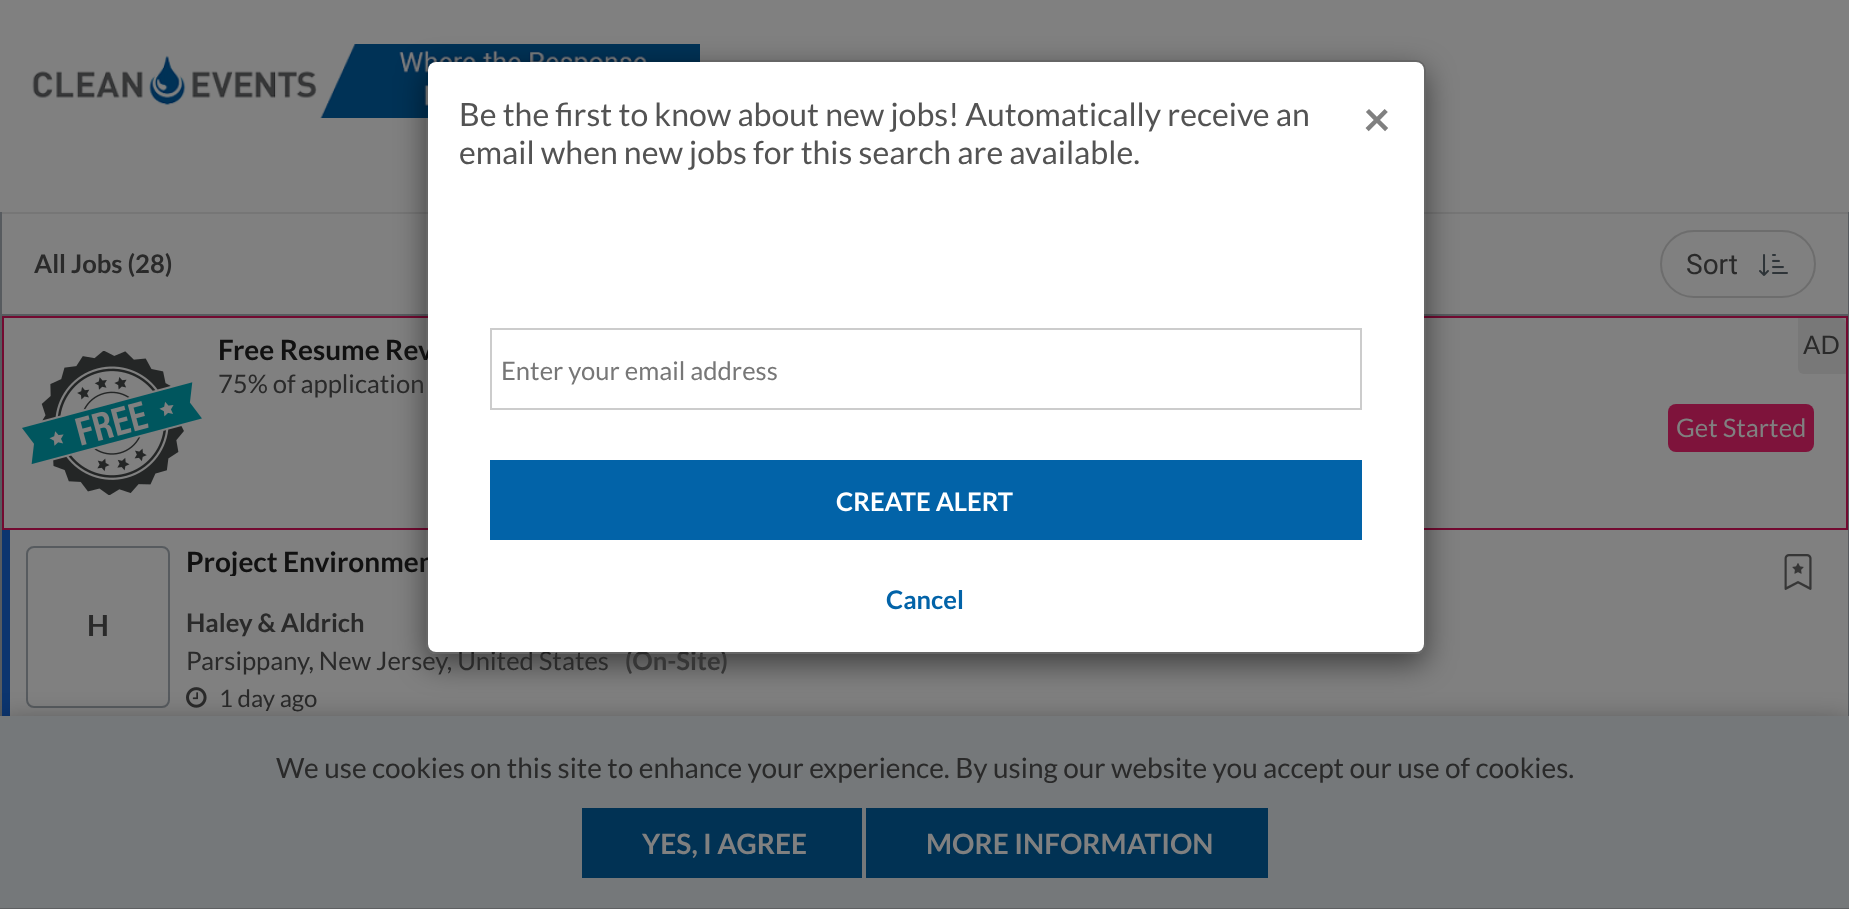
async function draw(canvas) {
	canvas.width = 1849;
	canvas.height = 909;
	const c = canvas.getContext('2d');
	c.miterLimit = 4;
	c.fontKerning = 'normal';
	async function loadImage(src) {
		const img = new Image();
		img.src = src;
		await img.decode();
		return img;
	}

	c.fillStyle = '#808080';
	c.fillRect(0, 0, 1849, 909);
	c.drawImage(await loadImage('img1.png'), 32, 44, 668, 74);
	c.fillStyle = '#767676';
	c.fillRect(0, 212, 1849, 2);
	c.fillStyle = '#575b5f';
	c.fillRect(2, 314, 1846, 2);
	c.strokeStyle = '#730a31';
	c.lineWidth = 2;
	c.strokeRect(3, 317, 1844, 212);
	c.save();
	c.beginPath();
	c.moveTo(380, 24);
	c.lineTo(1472, 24);
	c.lineTo(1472, 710);
	c.lineTo(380, 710);
	c.closePath();
	c.moveTo(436, 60);
	c.lineTo(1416, 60);
	c.bezierCurveTo(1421.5, 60, 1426, 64.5, 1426, 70);
	c.lineTo(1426, 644);
	c.bezierCurveTo(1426, 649.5, 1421.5, 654, 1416, 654);
	c.lineTo(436, 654);
	c.bezierCurveTo(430.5, 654, 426, 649.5, 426, 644);
	c.lineTo(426, 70);
	c.bezierCurveTo(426, 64.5, 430.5, 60, 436, 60);
	c.closePath();
	c.clip('evenodd');
	c.fillStyle = '#00000080';
	c.filter = 'blur(15px)';
	c.beginPath();
	c.roundRect(426, 70, 1000, 594, 10);
	c.fill();
	c.filter = 'none';
	c.restore();
	c.font = 'bold 28px Lato';
	c.fillStyle = '#111';
	c.fillText('Free Resume Rev', 218, 360);
	c.save();
	c.beginPath();
	c.rect(170, 546, 1462, 30);
	c.clip();
	c.fillText('Project Environmen', 186, 572);
	c.restore();
	c.font = '25.6px Lato';
	c.fillStyle = '#2a2a2a';
	c.fillText('Parsippany, New Jersey, United States', 186, 670);
	c.font = 'bold 25.6px Lato';
	c.fillStyle = '#363636';
	c.fillText('(On-Site)', 625, 670);
	c.fillStyle = '#fff';
	c.beginPath();
	c.roundRect(428, 62, 996, 590, 8);
	c.fill();
	c.beginPath();
	c.roundRect(427, 61, 998, 592, 9);
	c.strokeStyle = '#00000033';
	c.stroke();
	c.font = '32px Lato';
	c.fillStyle = '#535353';
	c.fillText('Be the first to know about new jobs! Automatically receive an', 459, 126);
	c.fillText('email when new jobs for this search are available.', 459, 164);
	c.font = 'bold 48px Lato';
	c.fillStyle = '#808080';
	c.fillText('×', 1363, 136);
	c.strokeStyle = '#ccc';
	c.strokeRect(491, 329, 870, 80);
	c.font = '25.6px Lato';
	c.fillStyle = '#777';
	c.fillText('Enter your email address', 501, 380);
	c.fillStyle = '#0263a8';
	c.fillRect(490, 460, 872, 80);
	c.font = 'bold 25.6px Lato';
	c.fillStyle = '#fff';
	c.fillText('CREATE ALERT', 836, 511);
	c.fillStyle = '#0263a8';
	c.fillText('Cancel', 886, 609);
	c.fillStyle = '#575b5f';
	c.fillRect(1848, 212, 1, 504);
	c.fillRect(0, 212, 2, 504);
	c.fillStyle = '#2a2a2a';
	c.fillText('All Jobs (28)', 34, 273);
	c.beginPath();
	c.roundRect(1661, 231, 154, 66, 33);
	c.strokeStyle = '#6d6d6d';
	c.stroke();
	c.font = '28px Roboto';
	c.fillText('Sort', 1686, 274);
	c.drawImage(await loadImage('img2.png'), 1759, 254, 29, 22);
	c.drawImage(await loadImage('img3.png'), 22, 351, 180, 144);
	c.fillStyle = '#787878';
	c.beginPath();
	c.roundRect(1798, 318, 48, 56, [0, 6, 0, 6]);
	c.fill();
	c.font = '25.6px Lato';
	c.fillStyle = '#2a2a2a';
	c.fillText('AD', 1803, 354);
	c.fillText('75% of application', 218, 393);
	c.fillStyle = '#7e133b';
	c.beginPath();
	c.roundRect(1668, 404, 146, 48, 8);
	c.fill();
	c.fillStyle = '#808080';
	c.fillText('Get Started', 1676, 437);
	c.fillStyle = '#0c356f';
	c.beginPath();
	c.moveTo(2, 734);
	c.lineTo(2, 530);
	c.lineTo(10, 530);
	c.lineTo(10, 732);
	c.closePath();
	c.fill();
	c.beginPath();
	c.roundRect(27, 547, 142, 160, 7);
	c.strokeStyle = '#575b5f';
	c.stroke();
	c.font = 'bold 29px Lato';
	c.fillStyle = '#2a2a2a';
	c.fillText('H', 87, 636);
	c.drawImage(await loadImage('img4.png'), 1784, 554, 28, 36);
	c.font = 'bold 25.6px Lato';
	c.fillText('Haley & Aldrich', 186, 632);
	c.drawImage(await loadImage('img5.png'), 186, 687, 21, 21);
	c.font = '24px Lato';
	c.fillText('1 day ago', 219, 707);
	c.fillStyle = '#00000080';
	c.filter = 'blur(15px)';
	c.beginPath();
	c.rect(0, 726, 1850, 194);
	c.fill();
	c.filter = 'none';
	c.fillStyle = '#75787a';
	c.fillRect(0, 716, 1849, 192);
	c.fillStyle = '#5e6062';
	c.fillRect(0, 908, 1849, 1);
	c.font = '28px Lato';
	c.fillStyle = '#2a2a2a';
	c.fillText('We use cookies on this site to enhance your experience. By using our website you accept our use of cookies.', 276, 778);
	c.fillStyle = '#013254';
	c.fillRect(582, 808, 280, 70);
	c.font = 'bold 28px Lato';
	c.fillStyle = '#808080';
	c.fillText('YES, I AGREE', 642, 854);
	c.fillStyle = '#013254';
	c.fillRect(866, 808, 402, 70);
	c.fillStyle = '#808080';
	c.fillText('MORE INFORMATION', 926, 854);
}

draw(document.querySelector('canvas'));
